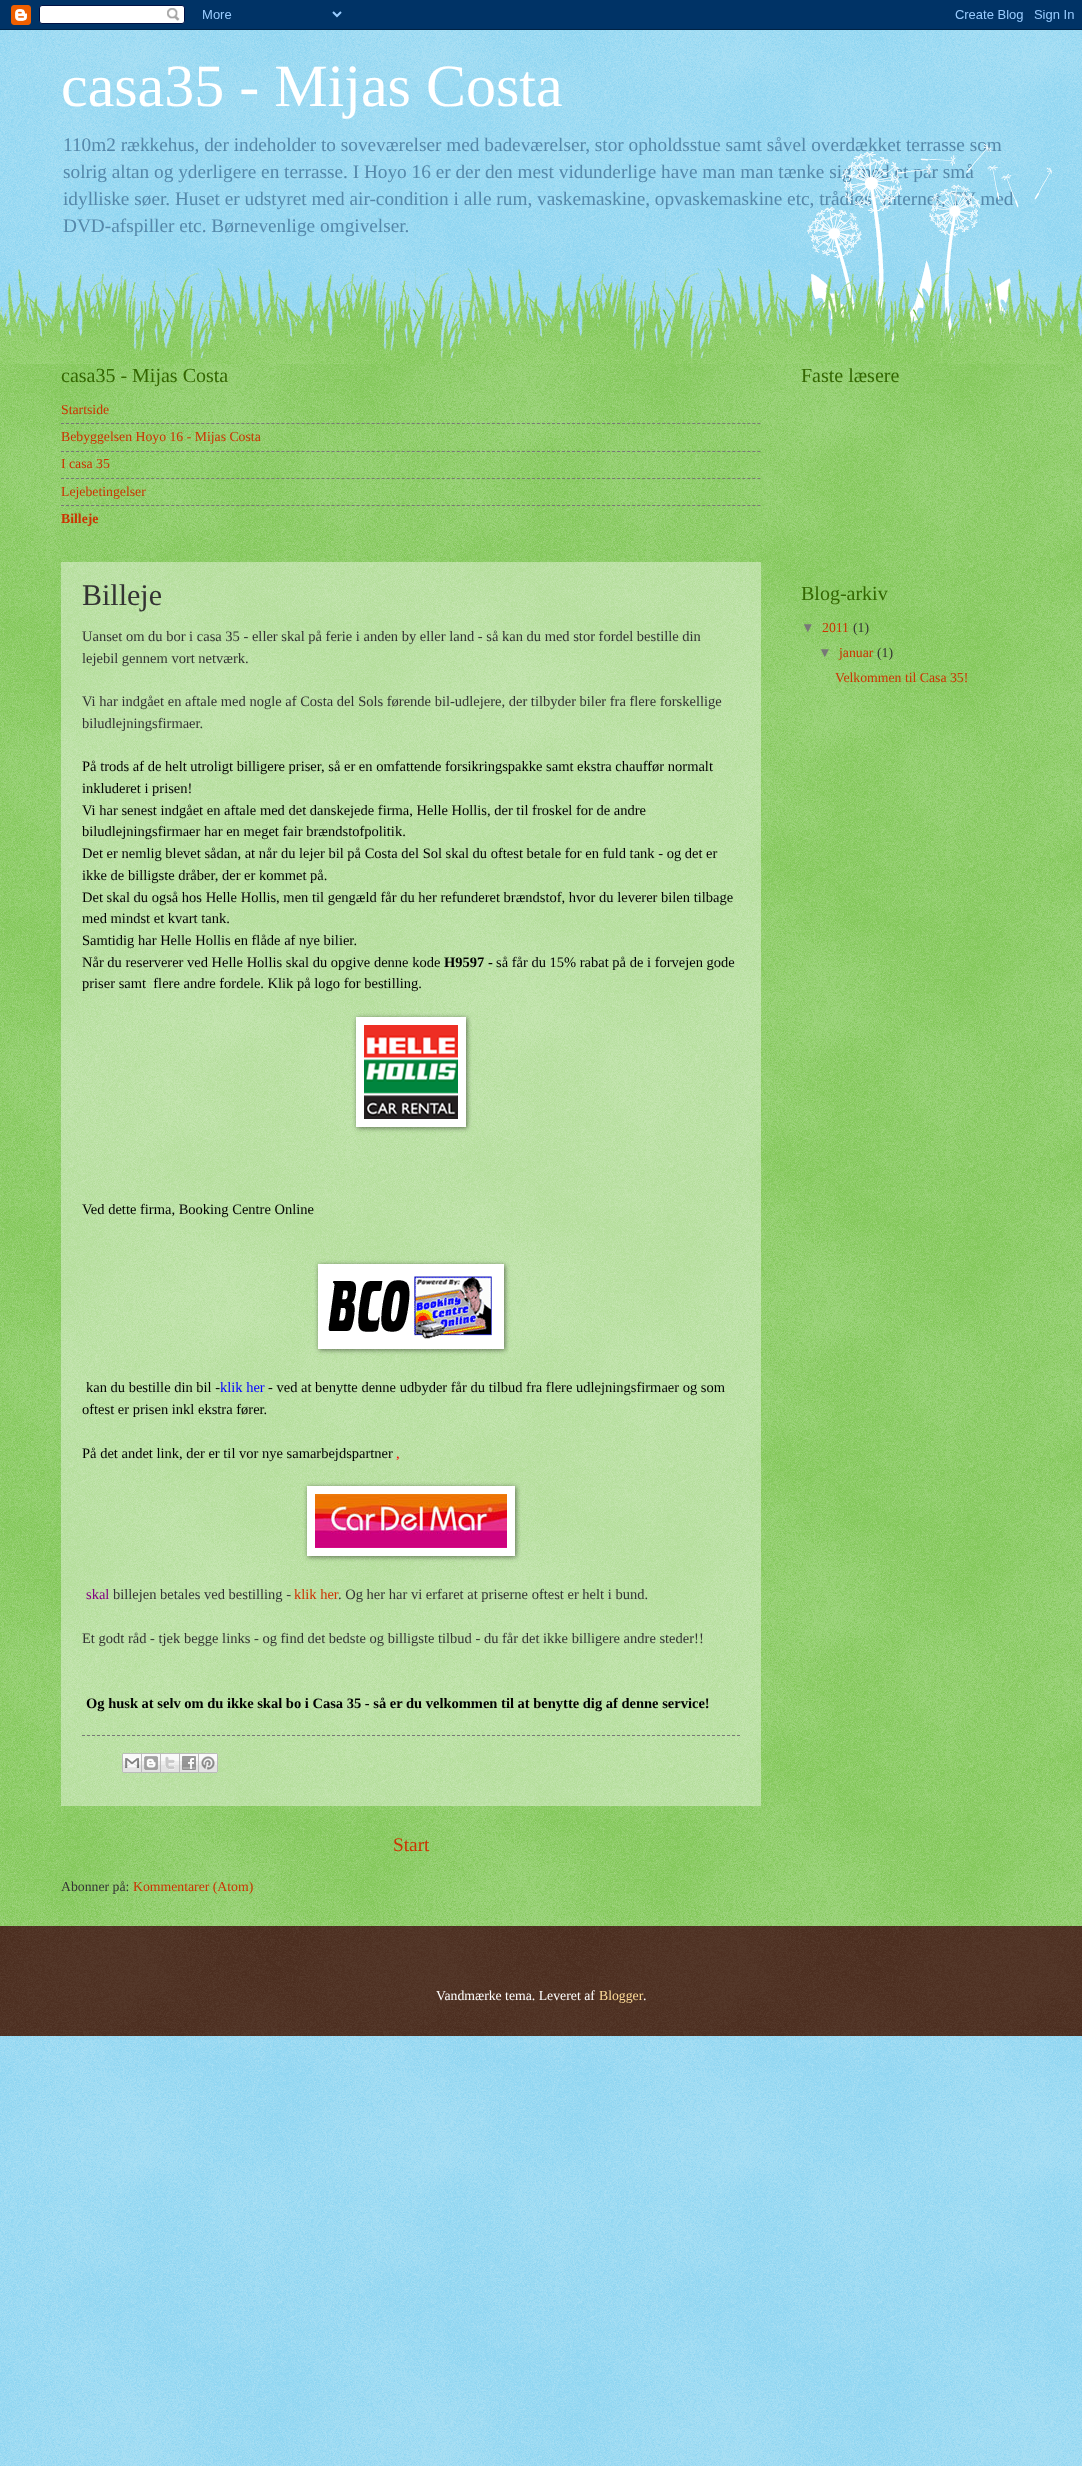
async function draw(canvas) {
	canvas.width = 1082;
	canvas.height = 2466;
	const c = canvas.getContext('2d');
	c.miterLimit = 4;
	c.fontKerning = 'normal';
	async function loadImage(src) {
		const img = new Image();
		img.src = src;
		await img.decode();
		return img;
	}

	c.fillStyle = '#7ce';
	c.fillRect(0, 0, 1082, 2466);
	c.drawImage(await loadImage('img1.png'), 0, 30, 1082, 2436);
	c.drawImage(await loadImage('img2.png'), 0, 0, 1082, 30);
	c.font = '60px Liberation Serif';
	c.fillStyle = '#fff';
	c.fillText('casa35 - Mijas Costa', 61, 106);
	c.font = '19.3px Liberation Serif';
	c.fillStyle = '#58a';
	for (const [text, x, y] of [
		['110m2 rækkehus, der indeholder to soveværelser med badeværelser, stor opholdsstue samt såvel overdækket terrasse som', 63, 151],
		['solrig altan og yderligere en terrasse. I Hoyo 16 er der den mest vidunderlige have man man tænke sig med et par små', 63, 178],
		['idylliske søer. Huset er udstyret med air-condition i alle rum, vaskemaskine, opvaskemaskine etc, trådløst internet, TV med', 63, 205],
		['DVD-afspiller etc. Børnevenlige omgivelser.', 63, 232],
	]) {
		c.fillText(text, x, y);
	}
	c.fillStyle = '#6b3';
	c.fillRect(0, 364, 1082, 1562);
	c.drawImage(await loadImage('img3.png'), 0, 364, 1082, 1562);
	c.drawImage(await loadImage('img4.png'), 802, 144, 250, 215);
	c.drawImage(await loadImage('img5.png'), 0, 268, 1082, 96);
	c.font = '20px Liberation Serif';
	c.fillStyle = '#360';
	c.fillText('casa35 - Mijas Costa', 61, 382);
	c.font = '13.75px Liberation Serif';
	c.fillStyle = '#c30';
	c.fillText('Startside', 61, 414);
	c.beginPath();
	c.moveTo(61, 423.5);
	c.lineTo(761, 423.5);
	c.strokeStyle = '#777';
	c.setLineDash([3, 2.01]);
	c.stroke();
	c.fillText('Bebyggelsen Hoyo 16 - Mijas Costa', 61, 441);
	c.beginPath();
	c.moveTo(61, 451.5);
	c.lineTo(761, 451.5);
	c.stroke();
	c.fillText('I casa 35', 61, 468);
	c.beginPath();
	c.moveTo(61, 478.5);
	c.lineTo(761, 478.5);
	c.stroke();
	c.fillText('Lejebetingelser', 61, 496);
	c.beginPath();
	c.moveTo(61, 505.5);
	c.lineTo(761, 505.5);
	c.stroke();
	c.font = 'bold 13.75px Liberation Serif';
	c.fillText('Billeje', 61, 523);
	c.fillStyle = '#ffffff66';
	c.fillRect(61, 562, 700, 1244);
	c.font = '30px Liberation Serif';
	c.fillStyle = '#333';
	c.fillText('Billeje', 82, 605);
	c.font = '14.5px Liberation Serif';
	for (const [text, x, y] of [
		['Uanset om du bor i casa 35 - eller skal på ferie i anden by eller land - så kan du med stor fordel bestille din', 82, 641],
		['lejebil gennem vort netværk.', 82, 663],
		['Vi har indgået en aftale med nogle af Costa del Sols førende bil-udlejere, der tilbyder biler fra flere forskellige', 82, 706],
		['biludlejningsfirmaer.', 82, 728],
	]) {
		c.fillText(text, x, y);
	}
	c.fillStyle = '#000';
	for (const [text, x, y] of [
		['På trods af de helt utroligt billigere priser, så er en omfattende forsikringspakke samt ekstra chauffør normalt', 82, 771],
		['inkluderet i prisen!', 82, 793],
		['Vi har senest indgået en aftale med det danskejede firma, Helle Hollis, der til froskel for de andre', 82, 815],
		['biludlejningsfirmaer har en meget fair brændstofpolitik.', 82, 836],
		['Det er nemlig blevet sådan, at når du lejer bil på Costa del Sol skal du oftest betale for en fuld tank - og det er', 82, 858],
		['ikke de billigste dråber, der er kommet på.', 82, 880],
		['Det skal du også hos Helle Hollis, men til gengæld får du her refunderet brændstof, hvor du leverer bilen tilbage', 82, 902],
		['med mindst et kvart tank.', 82, 923],
		['Samtidig har Helle Hollis en flåde af nye bilier.', 82, 945],
		['Når du reserverer ved Helle Hollis skal du opgive denne kode', 82, 967],
	]) {
		c.fillText(text, x, y);
	}
	c.font = 'bold 14.5px Liberation Serif';
	c.fillText('H9597 -', 444, 967);
	c.font = '14.5px Liberation Serif';
	c.fillText('så får du 15% rabat på de i forvejen gode', 496, 967);
	c.fillText('priser samt  flere andre fordele. Klik på logo for bestilling.', 82, 988);
	c.fillStyle = '#00000080';
	c.filter = 'blur(2.5px)';
	c.beginPath();
	c.rect(357, 1018, 110, 110);
	c.fill();
	c.filter = 'none';
	c.fillStyle = '#fff';
	c.fillRect(356, 1017, 110, 110);
	c.drawImage(await loadImage('img6.png'), 364, 1025, 94, 94);
	c.fillStyle = '#000';
	c.fillText('Ved dette firma, Booking Centre Online', 82, 1214);
	c.fillStyle = '#00000080';
	c.filter = 'blur(2.5px)';
	c.beginPath();
	c.rect(319, 1265, 186, 85);
	c.fill();
	c.filter = 'none';
	c.fillStyle = '#fff';
	c.fillRect(318, 1264, 186, 85);
	c.drawImage(await loadImage('img7.png'), 328, 1276, 164, 63);
	c.fillStyle = '#000';
	c.fillText('kan du bestille din bil -', 86, 1392);
	c.fillStyle = '#00f';
	c.fillText('klik her', 220, 1392);
	c.fillStyle = '#000';
	for (const [text, x, y] of [
		['- ved at benytte denne udbyder får du tilbud fra flere udlejningsfirmaer og som', 268, 1392],
		['oftest er prisen inkl ekstra fører.', 82, 1414],
		['På det andet link, der er til vor nye samarbejdspartner', 82, 1458],
	]) {
		c.fillText(text, x, y);
	}
	c.fillStyle = '#f00';
	c.fillText(',', 396, 1458);
	c.fillStyle = '#00000080';
	c.filter = 'blur(2.5px)';
	c.beginPath();
	c.rect(308, 1487, 208, 70);
	c.fill();
	c.filter = 'none';
	c.fillStyle = '#fff';
	c.fillRect(307, 1486, 208, 70);
	c.drawImage(await loadImage('img8.png'), 315, 1494, 192, 54);
	c.fillStyle = '#800080';
	c.fillText('skal', 86, 1599);
	c.fillStyle = '#333';
	c.fillText('billejen betales ved bestilling -', 113, 1599);
	c.fillStyle = '#c30';
	c.fillText('klik her', 294, 1599);
	c.fillStyle = '#333';
	c.fillText('. Og her har vi erfaret at priserne oftest er helt i bund.', 338, 1599);
	c.fillText('Et godt råd - tjek begge links - og find det bedste og billigste tilbud - du får det ikke billigere andre steder!!', 82, 1643);
	c.font = 'bold 14.5px Liberation Serif';
	c.fillStyle = '#000';
	c.fillText('Og husk at selv om du ikke skal bo i Casa 35 - så er du velkommen til at benytte dig af denne service!', 86, 1708);
	c.beginPath();
	c.moveTo(82, 1735.5);
	c.lineTo(740, 1735.5);
	c.setLineDash([3, 2]);
	c.stroke();
	c.drawImage(await loadImage('img9.png'), 122, 1753, 20, 20);
	c.drawImage(await loadImage('img10.png'), 142, 1753, 19, 20);
	c.drawImage(await loadImage('img11.png'), 161, 1753, 19, 20);
	c.drawImage(await loadImage('img12.png'), 180, 1753, 19, 20);
	c.drawImage(await loadImage('img13.png'), 199, 1753, 19, 20);
	c.font = '19.3px Liberation Serif';
	c.fillStyle = '#c30';
	c.fillText('Start', 393, 1851);
	c.font = '13.75px Liberation Serif';
	c.fillStyle = '#333';
	c.fillText('Abonner på:', 61, 1891);
	c.fillStyle = '#c30';
	c.fillText('Kommentarer (Atom)', 133, 1891);
	c.font = '20px Liberation Serif';
	c.fillStyle = '#360';
	c.fillText('Faste læsere', 801, 382);
	c.fillText('Blog-arkiv', 801, 600);
	c.font = '13.75px Liberation Sans';
	c.fillStyle = '#777';
	c.fillText('▼', 801, 632);
	c.font = '13.75px Liberation Serif';
	c.fillStyle = '#c30';
	c.fillText('2011', 822, 632);
	c.fillStyle = '#333';
	c.fillText('(1)', 853, 632);
	c.font = '13.75px Liberation Sans';
	c.fillStyle = '#777';
	c.fillText('▼', 818, 657);
	c.font = '13.75px Liberation Serif';
	c.fillStyle = '#c30';
	c.fillText('januar', 839, 657);
	c.fillStyle = '#333';
	c.fillText('(1)', 877, 657);
	c.fillStyle = '#c30';
	c.fillText('Velkommen til Casa 35!', 835, 682);
	c.fillStyle = '#310';
	c.fillRect(0, 1926, 1082, 110);
	c.drawImage(await loadImage('img14.png'), 0, 1926, 1082, 110);
	c.fillStyle = '#fff';
	c.fillText('Vandmærke tema. Leveret af', 436, 2000);
	c.fillStyle = '#fd9';
	c.fillText('Blogger', 599, 2000);
	c.fillStyle = '#fff';
	c.fillText('.', 643, 2000);
}

draw(document.querySelector('canvas'));
